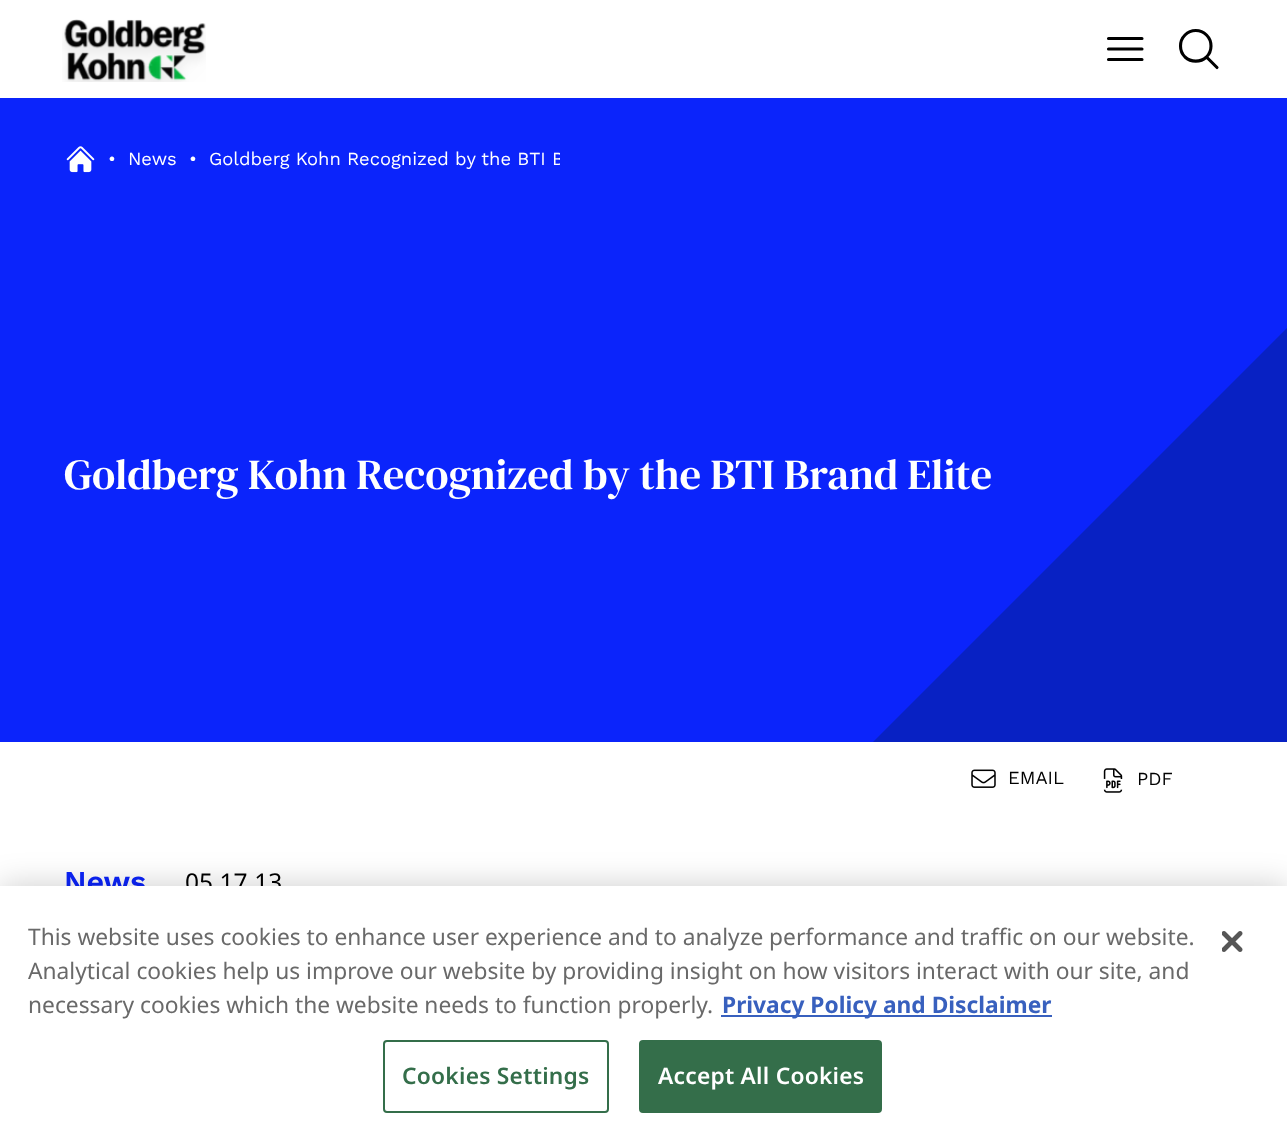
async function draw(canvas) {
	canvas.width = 1287;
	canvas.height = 1136;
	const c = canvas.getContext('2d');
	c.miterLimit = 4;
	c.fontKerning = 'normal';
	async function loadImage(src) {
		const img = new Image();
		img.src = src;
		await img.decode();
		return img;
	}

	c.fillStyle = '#fff';
	c.fillRect(0, 0, 1287, 1136);
	c.drawImage(await loadImage('img1.png'), 62, 19, 144, 63);
	c.beginPath();
	c.moveTo(1108.5, 38.5);
	c.lineTo(1142, 38.5);
	c.moveTo(1108.5, 49);
	c.lineTo(1142, 49);
	c.moveTo(1108.5, 59.5);
	c.lineTo(1142, 59.5);
	c.strokeStyle = '#000';
	c.lineWidth = 3.1;
	c.lineCap = 'round';
	c.lineJoin = 'round';
	c.stroke();
	c.beginPath();
	c.moveTo(1217, 67.5);
	c.lineTo(1206.5, 57);
	c.moveTo(1206.5, 57);
	c.bezierCurveTo(1212.5, 51, 1212.5, 41, 1206.5, 35);
	c.bezierCurveTo(1200.5, 29, 1191, 29, 1185, 35);
	c.bezierCurveTo(1179, 41, 1179, 51, 1185, 57);
	c.bezierCurveTo(1191, 62.5, 1200.5, 62.5, 1206.5, 57);
	c.closePath();
	c.stroke();
	c.fillStyle = '#0b24fb';
	c.fillRect(0, 98, 1287, 644);
	c.drawImage(await loadImage('img2.png'), 66, 146, 29, 27);
	c.font = '18.4px Work Sans';
	c.fillStyle = '#fff';
	for (const [text, x, y] of [
		['•', 108, 165],
		['News', 128, 165],
		['•', 189, 165],
	]) {
		c.fillText(text, x, y);
	}
	c.save();
	c.beginPath();
	c.rect(210, 147, 350, 25);
	c.clip();
	c.fillText('Goldberg Kohn Recognized by the BTI B', 209, 165);
	c.restore();
	c.fillStyle = '#0821c3';
	c.beginPath();
	c.moveTo(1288, 742);
	c.lineTo(873, 742);
	c.lineTo(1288, 327);
	c.closePath();
	c.fill();
	c.font = '42.9px DM Serif Text';
	c.fillStyle = '#fff';
	c.fillText('Goldberg Kohn Recognized by the BTI Brand Elite', 64, 489);
	c.drawImage(await loadImage('img3.png'), 971, 769, 25, 19);
	c.font = '18.4px Work Sans';
	c.fillStyle = '#000';
	c.fillText('EMAIL', 1008, 784);
	c.drawImage(await loadImage('img4.png'), 1103, 768, 20, 25);
	c.fillText('PDF', 1137, 785);
	c.font = '600 30.5px Work Sans';
	c.fillStyle = '#0b24fb';
	c.fillText('News', 64, 892);
	c.font = '24.5px Noto Sans';
	c.fillStyle = '#000';
	c.fillText('05.17.13', 185, 891);
	c.fillStyle = '#00000033';
	c.filter = 'blur(16px)';
	c.beginPath();
	c.rect(0, 886, 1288, 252);
	c.fill();
	c.filter = 'none';
	c.fillStyle = '#fff';
	c.fillRect(0, 886, 1287, 250);
	c.font = '22.75px Noto Sans';
	c.fillStyle = '#696969';
	for (const [text, x, y] of [
		['This website uses cookies to enhance user experience and to analyze performance and traffic on our website.', 28, 945],
		['Analytical cookies help us improve our website by providing insight on how visitors interact with our site, and', 28, 979],
		['necessary cookies which the website needs to function properly.', 28, 1013],
	]) {
		c.fillText(text, x, y);
	}
	c.fillStyle = '#3860be';
	c.fillRect(721, 1015, 331, 2);
	c.font = 'bold 22.75px Noto Sans';
	c.fillText('Privacy Policy and Disclaimer', 722, 1013);
	c.beginPath();
	c.roundRect(384, 1041, 224, 71, 3);
	c.strokeStyle = '#346e4a';
	c.lineWidth = 2;
	c.lineJoin = 'miter';
	c.stroke();
	c.letterSpacing = '0.25px';
	c.font = '600 22.75px Noto Sans';
	c.fillStyle = '#346e4a';
	c.fillText('Cookies Settings', 402, 1084);
	c.beginPath();
	c.roundRect(640, 1041, 241, 71, 3);
	c.fill();
	c.stroke();
	c.fillStyle = '#fff';
	c.fillText('Accept All Cookies', 658, 1084);
	c.drawImage(await loadImage('img5.png'), 1222, 931, 21, 21);
}

draw(document.querySelector('canvas'));
